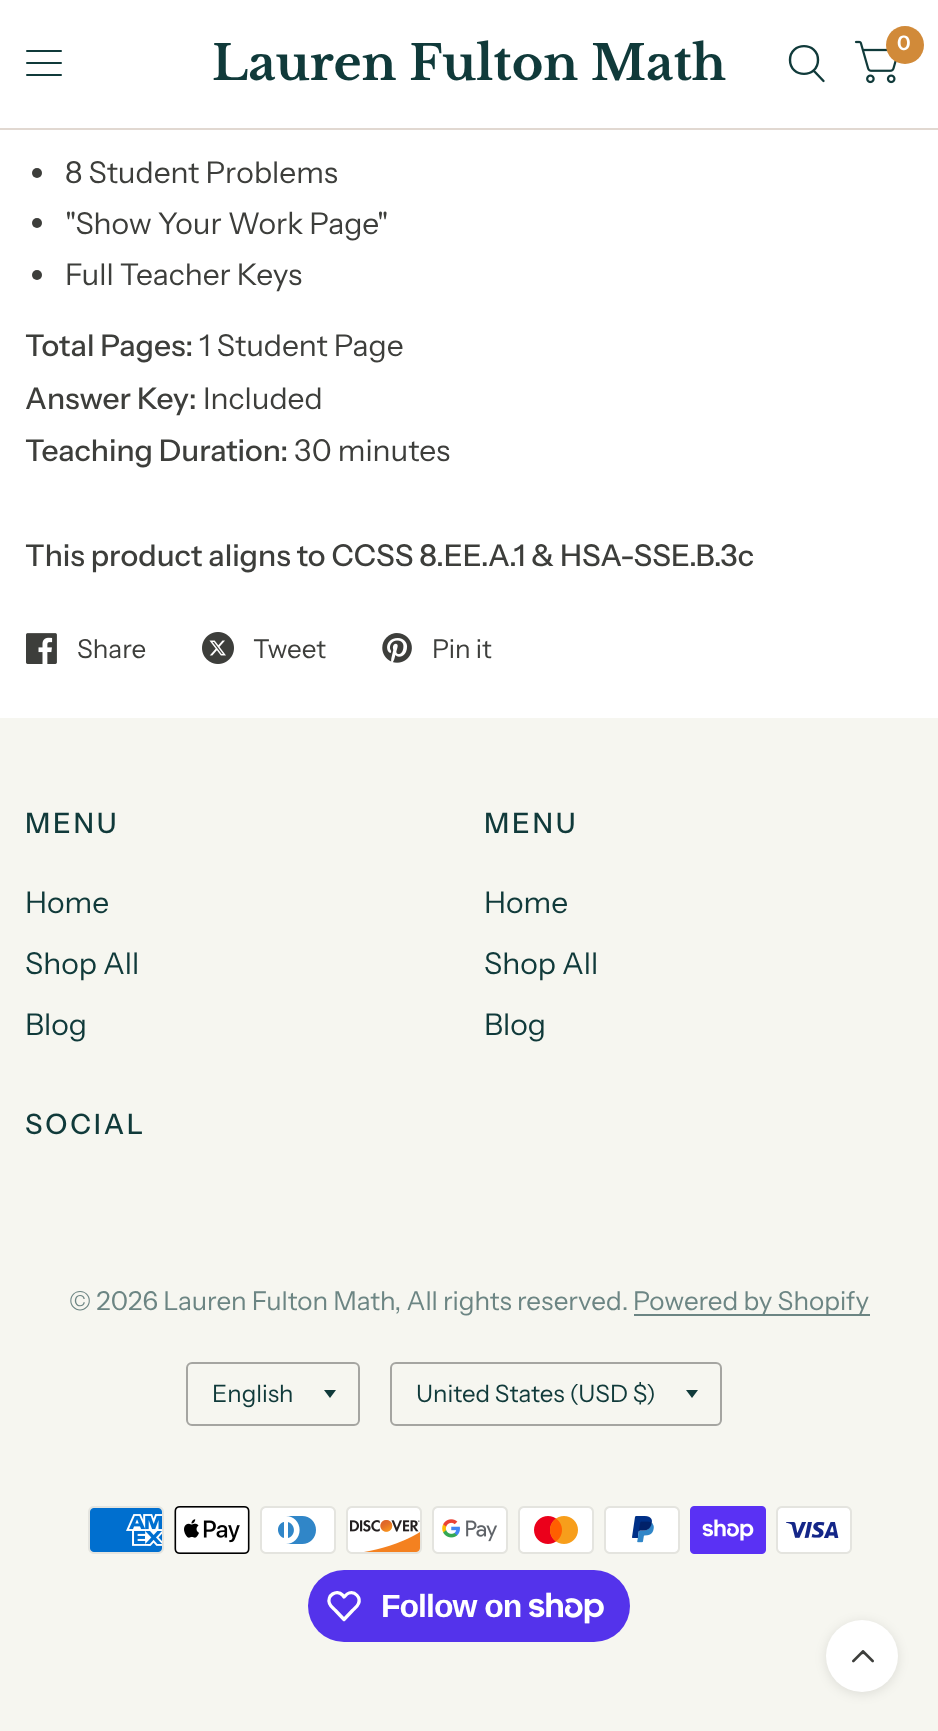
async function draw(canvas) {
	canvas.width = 938;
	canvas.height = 1731;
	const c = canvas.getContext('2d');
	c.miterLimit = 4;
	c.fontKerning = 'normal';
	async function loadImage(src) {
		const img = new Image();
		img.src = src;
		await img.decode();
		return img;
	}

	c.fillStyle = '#fff';
	c.fillRect(0, 0, 938, 1731);
	c.fillStyle = '#e1d8d1';
	c.fillRect(0, 128, 938, 2);
	c.fillStyle = '#103a3a';
	c.beginPath();
	c.roundRect(26, 50, 36, 2, 1);
	c.fill();
	c.beginPath();
	c.roundRect(26, 62, 36, 2, 1);
	c.fill();
	c.beginPath();
	c.roundRect(26, 74, 36, 2, 1);
	c.fill();
	c.font = 'bold 48px Libre Baskerville';
	c.fillText('Lauren Fulton Math', 212, 80);
	c.beginPath();
	c.moveTo(814, 71);
	c.lineTo(823.5, 81);
	c.moveTo(818, 60);
	c.bezierCurveTo(818, 78.5, 790, 78.5, 790, 60);
	c.bezierCurveTo(790, 41.5, 818, 41.5, 818, 60);
	c.closePath();
	c.strokeStyle = '#103a3a';
	c.lineWidth = 2.4;
	c.lineCap = 'round';
	c.lineJoin = 'round';
	c.stroke();
	c.drawImage(await loadImage('img1.png'), 854, 40, 43, 44);
	c.fillStyle = '#d18a39';
	c.beginPath();
	c.arc(905, 45, 19, 0, 2 * Math.PI);
	c.fill();
	c.font = '600 20px Instrument Sans';
	c.fillStyle = '#fff';
	c.fillText('0', 897, 50);
	c.fillStyle = '#3d3e3b';
	c.beginPath();
	c.arc(37, 173, 5, 0, 2 * Math.PI);
	c.fill();
	c.font = '30px Instrument Sans';
	c.fillText('8 Student Problems', 65, 183);
	c.beginPath();
	c.arc(37, 223, 5, 0, 2 * Math.PI);
	c.fill();
	c.fillText('"Show Your Work Page"', 65, 234);
	c.beginPath();
	c.arc(37, 275, 5, 0, 2 * Math.PI);
	c.fill();
	c.fillText('Full Teacher Keys', 65, 285);
	c.font = '500 30px Instrument Sans';
	c.fillText('Total Pages:', 25, 356);
	c.font = '30px Instrument Sans';
	c.fillText('1 Student Page', 199, 356);
	c.font = '500 30px Instrument Sans';
	c.fillText('Answer Key:', 25, 409);
	c.font = '30px Instrument Sans';
	c.fillText('Included', 203, 409);
	c.font = '500 30px Instrument Sans';
	c.fillText('Teaching Duration:', 25, 461);
	c.font = '30px Instrument Sans';
	c.fillText('30 minutes', 294, 461);
	c.font = '500 30px Instrument Sans';
	c.fillText('This product aligns to CCSS 8.EE.A.1 & HSA-SSE.B.3c', 25, 566);
	c.drawImage(await loadImage('img2.png'), 26, 633, 31, 31);
	c.font = '26px Instrument Sans';
	c.fillText('Share', 77, 658);
	c.drawImage(await loadImage('img3.png'), 202, 632, 32, 32);
	c.fillText('Tweet', 253, 658);
	c.drawImage(await loadImage('img4.png'), 382, 633, 30, 30);
	c.fillText('Pin it', 432, 658);
	c.fillStyle = '#f6f6f0';
	c.fillRect(0, 718, 938, 1013);
	c.letterSpacing = '2.75px';
	c.font = '500 28px Instrument Sans';
	c.fillStyle = '#103a3a';
	c.fillText('MENU', 25, 833);
	c.letterSpacing = '0px';
	c.font = '30px Instrument Sans';
	for (const [text, x, y] of [
		['Home', 25, 913],
		['Shop All', 25, 974],
		['Blog', 25, 1035],
	]) {
		c.fillText(text, x, y);
	}
	c.letterSpacing = '2.75px';
	c.font = '500 28px Instrument Sans';
	c.fillText('MENU', 484, 833);
	c.letterSpacing = '0px';
	c.font = '30px Instrument Sans';
	for (const [text, x, y] of [
		['Home', 484, 913],
		['Shop All', 484, 974],
		['Blog', 484, 1035],
	]) {
		c.fillText(text, x, y);
	}
	c.letterSpacing = '2.75px';
	c.font = '500 28px Instrument Sans';
	c.fillText('SOCIAL', 25, 1134);
	c.letterSpacing = '0px';
	c.font = '26px Instrument Sans';
	c.fillStyle = '#6c8583';
	c.fillText('© 2026 Lauren Fulton Math, All rights reserved.', 69, 1310);
	c.fillRect(634, 1314, 236, 2);
	c.fillText('Powered by Shopify', 633, 1310);
	c.beginPath();
	c.roundRect(187, 1363, 172, 62, 5);
	c.strokeStyle = '#a5a5a1';
	c.lineWidth = 2;
	c.lineJoin = 'miter';
	c.stroke();
	c.font = '24px Instrument Sans';
	c.fillStyle = '#103a3a';
	c.fillText('English', 212, 1402);
	c.beginPath();
	c.moveTo(324, 1390);
	c.lineTo(336, 1390);
	c.lineTo(330, 1398);
	c.closePath();
	c.fill();
	c.beginPath();
	c.roundRect(391, 1363, 330, 62, 5);
	c.stroke();
	c.fillText('United States (USD $)', 416, 1402);
	c.beginPath();
	c.moveTo(686, 1390);
	c.lineTo(698, 1390);
	c.lineTo(692, 1398);
	c.closePath();
	c.fill();
	c.drawImage(await loadImage('img5.png'), 88, 1506, 76, 48);
	c.drawImage(await loadImage('img6.png'), 174, 1506, 76, 48);
	c.drawImage(await loadImage('img7.png'), 260, 1506, 76, 48);
	c.drawImage(await loadImage('img8.png'), 346, 1506, 76, 48);
	c.drawImage(await loadImage('img9.png'), 432, 1506, 76, 48);
	c.drawImage(await loadImage('img10.png'), 518, 1506, 76, 48);
	c.drawImage(await loadImage('img11.png'), 604, 1506, 76, 48);
	c.drawImage(await loadImage('img12.png'), 690, 1506, 76, 48);
	c.drawImage(await loadImage('img13.png'), 776, 1506, 76, 48);
	c.fillStyle = '#5433eb';
	c.beginPath();
	c.roundRect(308, 1570, 322, 72, 36);
	c.fill();
	c.beginPath();
	c.moveTo(342.5, 1595);
	c.lineTo(344, 1597);
	c.bezierCurveTo(345.5, 1595.5, 347, 1593.5, 349, 1593);
	c.bezierCurveTo(355, 1591, 361, 1597.5, 358.5, 1603.5);
	c.bezierCurveTo(357.5, 1606.5, 354.5, 1608.5, 352.5, 1610.5);
	c.lineTo(344, 1619.5);
	c.lineTo(335.5, 1610.5);
	c.bezierCurveTo(333.5, 1608.5, 330.5, 1606.5, 329.5, 1603.5);
	c.bezierCurveTo(326.5, 1595.5, 336.5, 1589, 342.5, 1595);
	c.closePath();
	c.strokeStyle = '#fff';
	c.lineWidth = 3.3;
	c.lineCap = 'butt';
	c.lineJoin = 'round';
	c.stroke();
	c.letterSpacing = '-1px';
	c.font = 'bold 32px Liberation Sans';
	c.fillStyle = '#fff';
	c.fillText('Follow on', 381, 1617);
	c.drawImage(await loadImage('img14.png'), 529, 1592, 75, 32);
	c.fillStyle = '#0000001a';
	c.filter = 'blur(6px)';
	c.beginPath();
	c.roundRect(826, 1622, 72, 72, 36);
	c.fill();
	c.filter = 'none';
	c.fillStyle = '#fff';
	c.beginPath();
	c.arc(862, 1656, 36, 0, 2 * Math.PI);
	c.fill();
	c.drawImage(await loadImage('img15.png'), 852, 1650, 22, 13);
}

draw(document.querySelector('canvas'));
